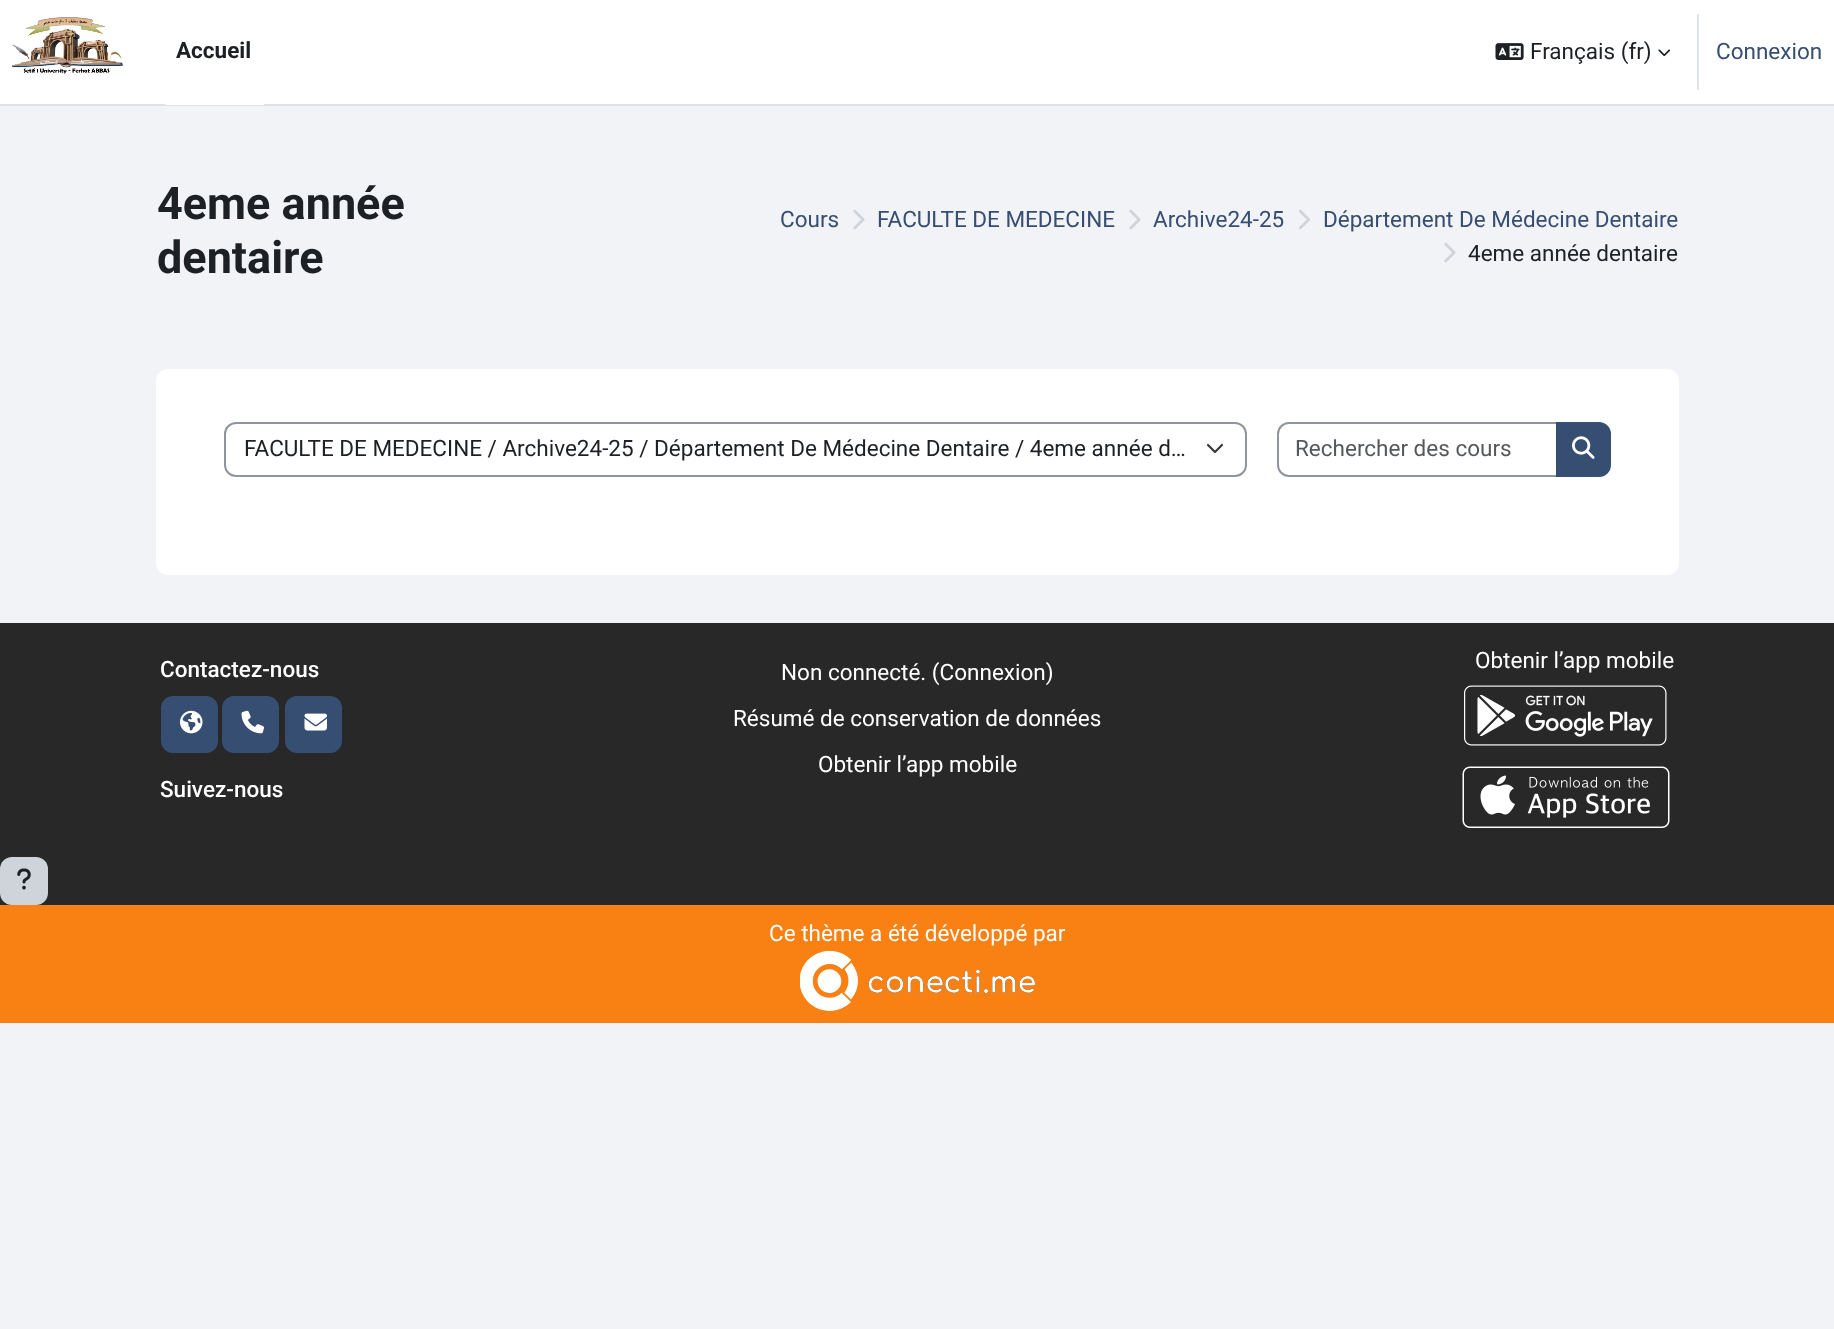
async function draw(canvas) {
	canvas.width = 1834;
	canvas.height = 1329;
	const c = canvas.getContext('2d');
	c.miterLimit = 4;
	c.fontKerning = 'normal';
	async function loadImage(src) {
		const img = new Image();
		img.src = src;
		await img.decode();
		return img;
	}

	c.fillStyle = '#f2f3f7';
	c.fillRect(0, 0, 1834, 1329);
	c.fillStyle = '#fff';
	c.fillRect(0, 0, 1834, 104);
	c.fillStyle = '#dee2e6';
	c.fillRect(0, 104, 1834, 2);
	c.drawImage(await loadImage('img1.png'), 12, 17, 111, 57);
	c.fillStyle = '#fff';
	c.fillRect(165, 104, 99, 1);
	c.font = 'bold 22.5px Roboto';
	c.fillStyle = '#1d2125';
	c.fillText('Accueil', 176, 58);
	c.drawImage(await loadImage('img2.png'), 1495, 43, 29, 17);
	c.font = '22.5px Roboto';
	c.fillText('Français (fr)', 1530, 59);
	c.drawImage(await loadImage('img3.png'), 1658, 49, 13, 8);
	c.fillStyle = '#dee2e6';
	c.fillRect(1697, 14, 2, 76);
	c.fillStyle = '#364e72';
	c.fillText('Connexion', 1716, 59);
	c.font = 'bold 45px Roboto';
	c.fillStyle = '#1d2125';
	c.fillText('4eme année', 157, 219);
	c.fillText('dentaire', 157, 273);
	c.font = '22.5px Roboto';
	c.fillStyle = '#364e72';
	c.fillText('Cours', 780, 227);
	c.drawImage(await loadImage('img4.png'), 853, 209, 12, 21);
	c.fillText('FACULTE DE MEDECINE', 877, 227);
	c.drawImage(await loadImage('img4.png'), 1129, 209, 12, 21);
	c.fillText('Archive24-25', 1153, 227);
	c.drawImage(await loadImage('img5.png'), 1299, 209, 11, 21);
	c.fillText('Département De Médecine Dentaire', 1323, 227);
	c.drawImage(await loadImage('img4.png'), 1444, 242, 12, 21);
	c.fillStyle = '#1d2125';
	c.fillText('4eme année dentaire', 1468, 261);
	c.fillStyle = '#fff';
	c.beginPath();
	c.roundRect(156, 369, 1523, 206, 12);
	c.fill();
	c.beginPath();
	c.moveTo(1208, 445);
	c.lineTo(1215, 452);
	c.lineTo(1222, 445);
	c.strokeStyle = '#343a40';
	c.lineWidth = 2.2;
	c.lineCap = 'round';
	c.lineJoin = 'round';
	c.stroke();
	c.beginPath();
	c.roundRect(225, 423, 1021, 53, 11);
	c.strokeStyle = '#8f959e';
	c.lineWidth = 2;
	c.lineJoin = 'miter';
	c.stroke();
	c.fillStyle = '#1d2125';
	c.fillText('FACULTE DE MEDECINE / Archive24-25 / Département De Médecine Dentaire / 4eme année d…', 244, 456);
	c.beginPath();
	c.roundRect(1278, 423, 280, 53, [11, 0, 0, 11]);
	c.stroke();
	c.fillStyle = '#56595c';
	c.fillText('Rechercher des cours', 1295, 456);
	c.fillStyle = '#364e72';
	c.beginPath();
	c.roundRect(1557, 423, 53, 53, [0, 11, 11, 0]);
	c.fill();
	c.strokeStyle = '#364e72';
	c.stroke();
	c.drawImage(await loadImage('img6.png'), 1572, 436, 23, 23);
	c.fillStyle = '#282829';
	c.fillRect(0, 623, 1834, 282);
	c.font = '500 22.5px Roboto';
	c.fillStyle = '#fff';
	c.fillText('Contactez-nous', 160, 677);
	c.fillStyle = '#364e72';
	c.beginPath();
	c.roundRect(161, 696, 57, 57, 12);
	c.fill();
	c.drawImage(await loadImage('img7.png'), 180, 710, 23, 24);
	c.beginPath();
	c.roundRect(222, 696, 57, 57, 12);
	c.fill();
	c.drawImage(await loadImage('img8.png'), 241, 710, 23, 24);
	c.beginPath();
	c.roundRect(285, 696, 57, 57, 12);
	c.fill();
	c.drawImage(await loadImage('img9.png'), 304, 713, 23, 18);
	c.fillStyle = '#fff';
	c.fillText('Suivez-nous', 160, 797);
	c.font = '22.5px Roboto';
	for (const [text, x, y] of [
		['Non connecté. (Connexion)', 781, 680],
		['Résumé de conservation de données', 733, 726],
		['Obtenir l’app mobile', 818, 772],
		['Obtenir l’app mobile', 1475, 668],
	]) {
		c.fillText(text, x, y);
	}
	c.drawImage(await loadImage('img10.png'), 1464, 685, 203, 61);
	c.drawImage(await loadImage('img11.png'), 1462, 766, 208, 62);
	c.fillStyle = '#ced4da';
	c.beginPath();
	c.roundRect(0, 857, 48, 48, 12);
	c.fill();
	c.drawImage(await loadImage('img12.png'), 17, 868, 14, 22);
	c.fillStyle = '#f98012';
	c.fillRect(0, 905, 1834, 118);
	c.fillStyle = '#fff';
	c.fillText('Ce thème a été développé par', 769, 941);
	c.drawImage(await loadImage('img13.png'), 800, 951, 235, 60);
}

draw(document.querySelector('canvas'));
